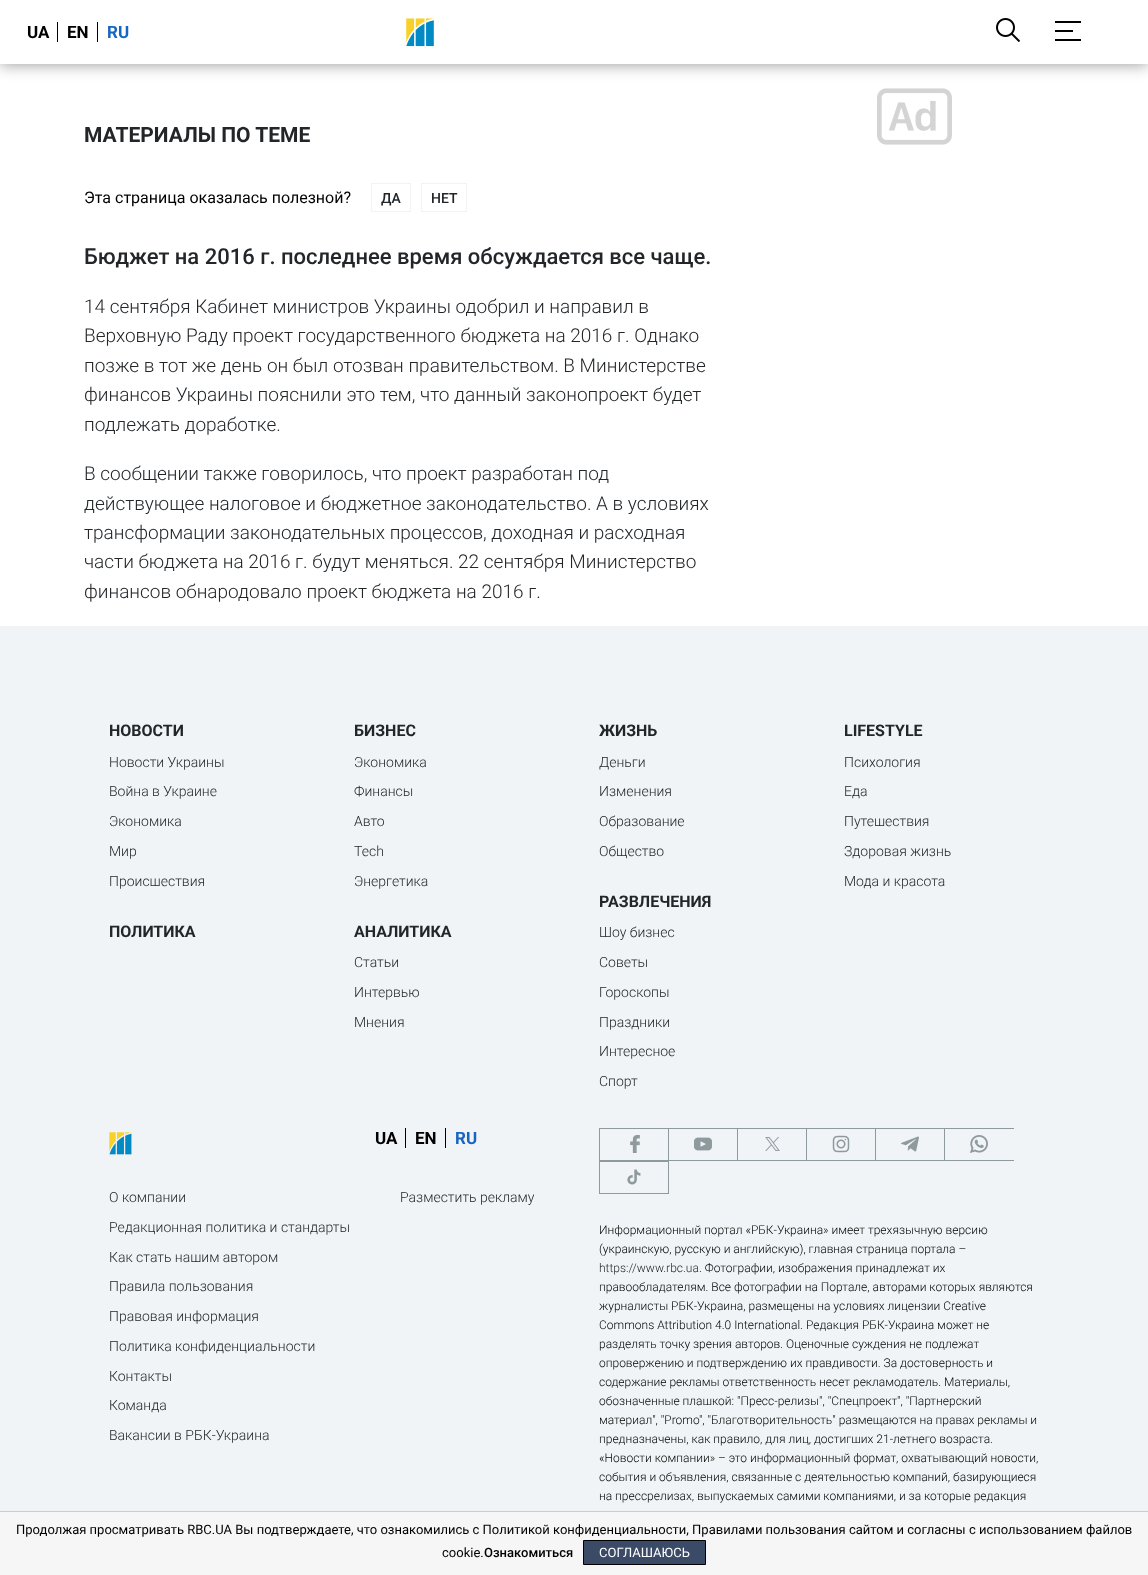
async function draw(canvas) {
	canvas.width = 1148;
	canvas.height = 1575;
	const c = canvas.getContext('2d');
	c.miterLimit = 4;
	c.fontKerning = 'normal';
	async function loadImage(src) {
		const img = new Image();
		img.src = src;
		await img.decode();
		return img;
	}

	c.fillStyle = '#fff';
	c.fillRect(0, 0, 1148, 1575);
	c.drawImage(await loadImage('img3.png'), 877, 88, 75, 57);
	c.fillStyle = '#00000061';
	c.filter = 'blur(7.5px)';
	c.beginPath();
	c.rect(0, 1, 1148, 64);
	c.fill();
	c.filter = 'none';
	c.fillStyle = '#fff';
	c.fillRect(0, 0, 1148, 64);
	c.font = 'bold 17px Roboto';
	c.fillStyle = '#000';
	c.fillText('UA', 27, 38);
	c.fillRect(57, 22, 1, 20);
	c.fillText('EN', 67, 38);
	c.fillRect(97, 22, 1, 20);
	c.fillStyle = '#1665c1';
	c.fillText('RU', 107, 38);
	c.drawImage(await loadImage('img1.png'), 406, 18, 28, 29);
	c.drawImage(await loadImage('img2.png'), 996, 18, 24, 24);
	for (const [x, y, w, h, color] of [
		[1055, 21, 26, 2, '#000'],
		[1055, 30, 18, 2, '#000'],
		[1055, 39, 26, 2, '#000'],
	]) {
		c.fillStyle = color;
		c.fillRect(x, y, w, h);
	}
	c.font = 'bold 21px Roboto';
	c.fillStyle = '#222629';
	c.fillText('МАТЕРИАЛЫ ПО ТЕМЕ', 84, 142);
	c.font = '16px Roboto';
	c.fillStyle = '#000';
	c.fillText('Эта страница оказалась полезной?', 84, 203);
	c.strokeStyle = '#f1f4f6';
	c.strokeRect(371.5, 183.5, 39, 28);
	c.font = '500 14px Roboto';
	c.fillStyle = '#222629';
	c.fillText('ДА', 381, 203);
	c.strokeRect(421.5, 183.5, 45, 28);
	c.fillText('НЕТ', 431, 203);
	c.font = '500 22px Roboto';
	c.fillText('Бюджет на 2016 г. последнее время обсуждается все чаще.', 84, 264);
	c.font = '300 19px Roboto';
	for (const [text, x, y] of [
		['14 сентября Кабинет министров Украины одобрил и направил в', 84, 313],
		['Верховную Раду проект государственного бюджета на 2016 г. Однако', 84, 342],
		['позже в тот же день он был отозван правительством. В Министерстве', 84, 372],
		['финансов Украины пояснили это тем, что данный законопроект будет', 84, 401],
		['подлежать доработке.', 84, 431],
		['В сообщении также говорилось, что проект разработан под', 84, 480],
		['действующее налоговое и бюджетное законодательство. А в условиях', 84, 510],
		['трансформации законодательных процессов, доходная и расходная', 84, 539],
		['части бюджета на 2016 г. будут меняться. 22 сентября Министерство', 84, 568],
		['финансов обнародовало проект бюджета на 2016 г.', 84, 598],
	]) {
		c.fillText(text, x, y);
	}
	c.fillStyle = '#f1f4f6';
	c.fillRect(0, 626, 1148, 885);
	c.font = 'bold 16px Roboto';
	c.fillStyle = '#222629';
	c.fillText('НОВОСТИ', 109, 736);
	c.font = '300 14px Roboto';
	for (const [text, x, y] of [
		['Новости Украины', 109, 767],
		['Война в Украине', 109, 796],
		['Экономика', 109, 826],
		['Мир', 109, 856],
		['Происшествия', 109, 886],
	]) {
		c.fillText(text, x, y);
	}
	c.font = 'bold 16px Roboto';
	c.fillText('ПОЛИТИКА', 109, 937);
	c.fillText('БИЗНЕС', 354, 736);
	c.font = '300 14px Roboto';
	for (const [text, x, y] of [
		['Экономика', 354, 767],
		['Финансы', 354, 796],
		['Авто', 354, 826],
		['Tech', 354, 856],
		['Энергетика', 354, 886],
	]) {
		c.fillText(text, x, y);
	}
	c.font = 'bold 16px Roboto';
	c.fillText('АНАЛИТИКА', 354, 937);
	c.font = '300 14px Roboto';
	for (const [text, x, y] of [
		['Статьи', 354, 967],
		['Интервью', 354, 997],
		['Мнения', 354, 1027],
	]) {
		c.fillText(text, x, y);
	}
	c.font = 'bold 16px Roboto';
	c.fillText('ЖИЗНЬ', 599, 736);
	c.font = '300 14px Roboto';
	for (const [text, x, y] of [
		['Деньги', 599, 767],
		['Изменения', 599, 796],
		['Образование', 599, 826],
		['Общество', 599, 856],
	]) {
		c.fillText(text, x, y);
	}
	c.font = 'bold 16px Roboto';
	c.fillText('РАЗВЛЕЧЕНИЯ', 599, 907);
	c.font = '300 14px Roboto';
	for (const [text, x, y] of [
		['Шоу бизнес', 599, 937],
		['Советы', 599, 967],
		['Гороскопы', 599, 997],
		['Праздники', 599, 1027],
		['Интересное', 599, 1056],
		['Спорт', 599, 1086],
	]) {
		c.fillText(text, x, y);
	}
	c.font = 'bold 16px Roboto';
	c.fillText('LIFESTYLE', 844, 736);
	c.font = '300 14px Roboto';
	for (const [text, x, y] of [
		['Психология', 844, 767],
		['Еда', 844, 796],
		['Путешествия', 844, 826],
		['Здоровая жизнь', 844, 856],
		['Мода и красота', 844, 886],
	]) {
		c.fillText(text, x, y);
	}
	c.drawImage(await loadImage('img4.png'), 109, 1132, 23, 23);
	c.font = 'bold 17px Roboto';
	c.fillStyle = '#000';
	c.fillText('UA', 375, 1144);
	c.fillRect(405, 1128, 1, 20);
	c.fillText('EN', 415, 1144);
	c.fillRect(445, 1128, 1, 20);
	c.fillStyle = '#1665c1';
	c.fillText('RU', 455, 1144);
	c.font = '300 14px Roboto';
	c.fillStyle = '#222629';
	for (const [text, x, y] of [
		['О компании', 109, 1202],
		['Редакционная политика и стандарты', 109, 1232],
		['Как стать нашим автором', 109, 1262],
		['Правила пользования', 109, 1291],
		['Правовая информация', 109, 1321],
		['Политика конфиденциальности', 109, 1351],
		['Контакты', 109, 1381],
		['Команда', 109, 1410],
		['Вакансии в РБК-Украина', 109, 1440],
		['Разместить рекламу', 400, 1202],
	]) {
		c.fillText(text, x, y);
	}
	for (const [x, y, w, h, color] of [
		[599, 1128, 415, 1, '#8f9a9f'],
		[599, 1160, 415, 1, '#8f9a9f'],
		[599, 1128, 1, 33, '#8f9a9f'],
	]) {
		c.fillStyle = color;
		c.fillRect(x, y, w, h);
	}
	c.drawImage(await loadImage('img5.png'), 630, 1135, 10, 18);
	c.fillRect(668, 1128, 1, 33);
	c.drawImage(await loadImage('img6.png'), 694, 1137, 18, 14);
	c.fillRect(737, 1128, 1, 33);
	c.drawImage(await loadImage('img7.png'), 765, 1137, 15, 14);
	c.fillRect(806, 1128, 1, 33);
	c.drawImage(await loadImage('img8.png'), 832, 1135, 18, 18);
	c.fillRect(875, 1128, 1, 33);
	c.drawImage(await loadImage('img9.png'), 901, 1136, 18, 16);
	c.fillRect(944, 1128, 1, 33);
	c.drawImage(await loadImage('img10.png'), 970, 1135, 18, 18);
	c.strokeStyle = '#8f9a9f';
	c.strokeRect(599.5, 1161.5, 69, 32);
	c.drawImage(await loadImage('img11.png'), 627, 1169, 14, 16);
	c.font = '300 12px Roboto';
	c.fillStyle = '#000';
	c.fillText('Информационный портал «РБК-Украина» имеет трехязычную версию', 599, 1234);
	c.fillText('(украинскую, русскую и английскую), главная страница портала –', 599, 1253);
	c.fillStyle = '#222629';
	c.fillText('https://www.rbc.ua', 599, 1272);
	c.fillStyle = '#000';
	for (const [text, x, y] of [
		['. Фотографии, изображения принадлежат их', 699, 1272],
		['правообладателям. Все фотографии на Портале, авторами которых являются', 599, 1291],
		['журналисты РБК-Украина, размещены на условиях лицензии Creative', 599, 1310],
		['Commons Attribution 4.0 International. Редакция РБК-Украина может не', 599, 1329],
		['разделять точку зрения авторов. Оценочные суждения не подлежат', 599, 1348],
		['опровержению и подтверждению их правдивости. За достоверность и', 599, 1367],
		['содержание рекламы ответственность несет рекламодатель. Материалы,', 599, 1386],
		['обозначенные плашкой: "Пресс-релизы", "Спецпроект", "Партнерский', 599, 1405],
		['материал", "Promo", "Благотворительность" размещаются на правах рекламы и', 599, 1424],
		['предназначены, как правило, для лиц, достигших 21-летнего возраста.', 599, 1443],
		['«Новости компании» – это информационный формат, охватывающий новости,', 599, 1462],
		['события и объявления, связанные с деятельностью компаний, базирующиеся', 599, 1481],
		['на прессрелизах, выпускаемых самими компаниями, и за которые редакция', 599, 1500],
	]) {
		c.fillText(text, x, y);
	}
	c.fillStyle = '#f7f6f6';
	c.fillRect(0, 1512, 1148, 63);
	c.fillStyle = '#ccc';
	c.fillRect(0, 1511, 1148, 1);
	c.font = '13px Roboto';
	c.fillStyle = '#000';
	c.fillText('Продолжая просматривать RBC.UA Вы подтверждаете, что ознакомились с Политикой конфиденциальности, Правилами пользования сайтом и согласны с использованием файлов', 16, 1534);
	c.fillText('cookie.', 442, 1557);
	c.font = '500 13px Roboto';
	c.fillText('Ознакомиться', 484, 1557);
	c.fillStyle = '#3b4a66';
	c.beginPath();
	c.rect(583.5, 1540.5, 122, 24);
	c.fill();
	c.strokeStyle = '#000';
	c.stroke();
	c.font = '13px Roboto';
	c.fillStyle = '#fff';
	c.fillText('СОГЛАШАЮСЬ', 599, 1557);
}

draw(document.querySelector('canvas'));
